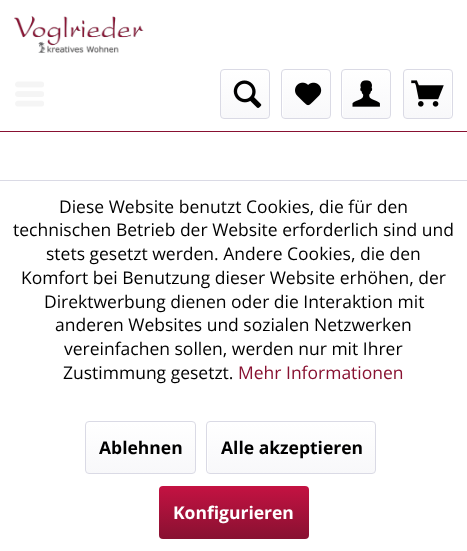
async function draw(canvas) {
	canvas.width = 467;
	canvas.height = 551;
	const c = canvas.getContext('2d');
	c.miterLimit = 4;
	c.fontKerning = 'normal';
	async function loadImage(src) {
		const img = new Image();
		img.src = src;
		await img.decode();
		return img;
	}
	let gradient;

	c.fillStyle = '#fff';
	c.fillRect(0, 0, 467, 551);
	c.fillStyle = '#881131';
	c.fillRect(0, 131, 467, 1);
	c.drawImage(await loadImage('img1.png'), 14, 16, 130, 37);
	c.drawImage(await loadImage('img2.png'), 15, 81, 29, 26);
	gradient = c.createLinearGradient(245, 70, 245, 118);
	gradient.addColorStop(0, '#fff');
	gradient.addColorStop(1, '#f8f8fa');
	c.fillStyle = gradient;
	c.beginPath();
	c.roundRect(221, 70, 48, 48, 2.5);
	c.fill();
	c.beginPath();
	c.roundRect(220.5, 69.5, 49, 49, 3.5);
	c.strokeStyle = '#dadae5';
	c.stroke();
	c.drawImage(await loadImage('img3.png'), 233, 80, 29, 28);
	gradient = c.createLinearGradient(306, 70, 306, 118);
	gradient.addColorStop(0, '#fff');
	gradient.addColorStop(1, '#f8f8fa');
	c.fillStyle = gradient;
	c.beginPath();
	c.roundRect(283, 70, 47, 48, 2.5);
	c.fill();
	c.beginPath();
	c.roundRect(281.5, 69.5, 49, 49, 3.5);
	c.stroke();
	c.drawImage(await loadImage('img4.png'), 295, 82, 27, 24);
	gradient = c.createLinearGradient(366, 70, 366, 118);
	gradient.addColorStop(0, '#fff');
	gradient.addColorStop(1, '#f8f8fa');
	c.fillStyle = gradient;
	c.beginPath();
	c.roundRect(343, 70, 47, 48, 2.5);
	c.fill();
	c.beginPath();
	c.roundRect(341.5, 69.5, 49, 49, 3.5);
	c.stroke();
	c.drawImage(await loadImage('img5.png'), 352, 80, 28, 27);
	gradient = c.createLinearGradient(428, 70, 428, 118);
	gradient.addColorStop(0, '#fff');
	gradient.addColorStop(1, '#f8f8fa');
	c.fillStyle = gradient;
	c.beginPath();
	c.roundRect(404, 70, 47, 48, 2.5);
	c.fill();
	c.beginPath();
	c.roundRect(403.5, 69.5, 49, 49, 3.5);
	c.stroke();
	c.drawImage(await loadImage('img6.png'), 411, 80, 33, 27);
	c.fillStyle = '#dadae5';
	c.fillRect(0, 180, 467, 1);
	c.font = '17.5px Open Sans';
	c.fillStyle = '#000';
	for (const [text, x, y] of [
		['Diese Website benutzt Cookies, die für den', 59, 213],
		['technischen Betrieb der Website erforderlich sind und', 13, 236],
		['stets gesetzt werden. Andere Cookies, die den', 46, 260],
		['Komfort bei Benutzung dieser Website erhöhen, der', 21, 284],
		['Direktwerbung dienen oder die Interaktion mit', 44, 308],
		['anderen Websites und sozialen Netzwerken', 55, 331],
		['vereinfachen sollen, werden nur mit Ihrer', 64, 355],
		['Zustimmung gesetzt.', 63, 379],
	]) {
		c.fillText(text, x, y);
	}
	c.fillStyle = '#881131';
	c.fillText('Mehr Informationen', 238, 379);
	gradient = c.createLinearGradient(141, 423, 141, 473);
	gradient.addColorStop(0, '#fff');
	gradient.addColorStop(1, '#f8f8fa');
	c.fillStyle = gradient;
	c.beginPath();
	c.roundRect(86, 423, 109, 50, 2.5);
	c.fill();
	c.beginPath();
	c.roundRect(85.5, 421.5, 110, 52, 3.5);
	c.stroke();
	c.font = 'bold 17.5px Open Sans';
	c.fillStyle = '#000';
	c.fillText('Ablehnen', 99, 454);
	gradient = c.createLinearGradient(291, 423, 291, 473);
	gradient.addColorStop(0, '#fff');
	gradient.addColorStop(1, '#f8f8fa');
	c.fillStyle = gradient;
	c.beginPath();
	c.roundRect(208, 423, 167, 50, 2.5);
	c.fill();
	c.beginPath();
	c.roundRect(206.5, 421.5, 169, 52, 3.5);
	c.stroke();
	c.fillStyle = '#000';
	c.fillText('Alle akzeptieren', 221, 454);
	gradient = c.createLinearGradient(234, 486, 234, 539);
	gradient.addColorStop(0, '#c41242');
	gradient.addColorStop(1, '#881131');
	c.fillStyle = gradient;
	c.beginPath();
	c.roundRect(159, 486, 150, 53, 4);
	c.fill();
	c.fillStyle = '#fff';
	c.fillText('Konfigurieren', 173, 519);
}

draw(document.querySelector('canvas'));
